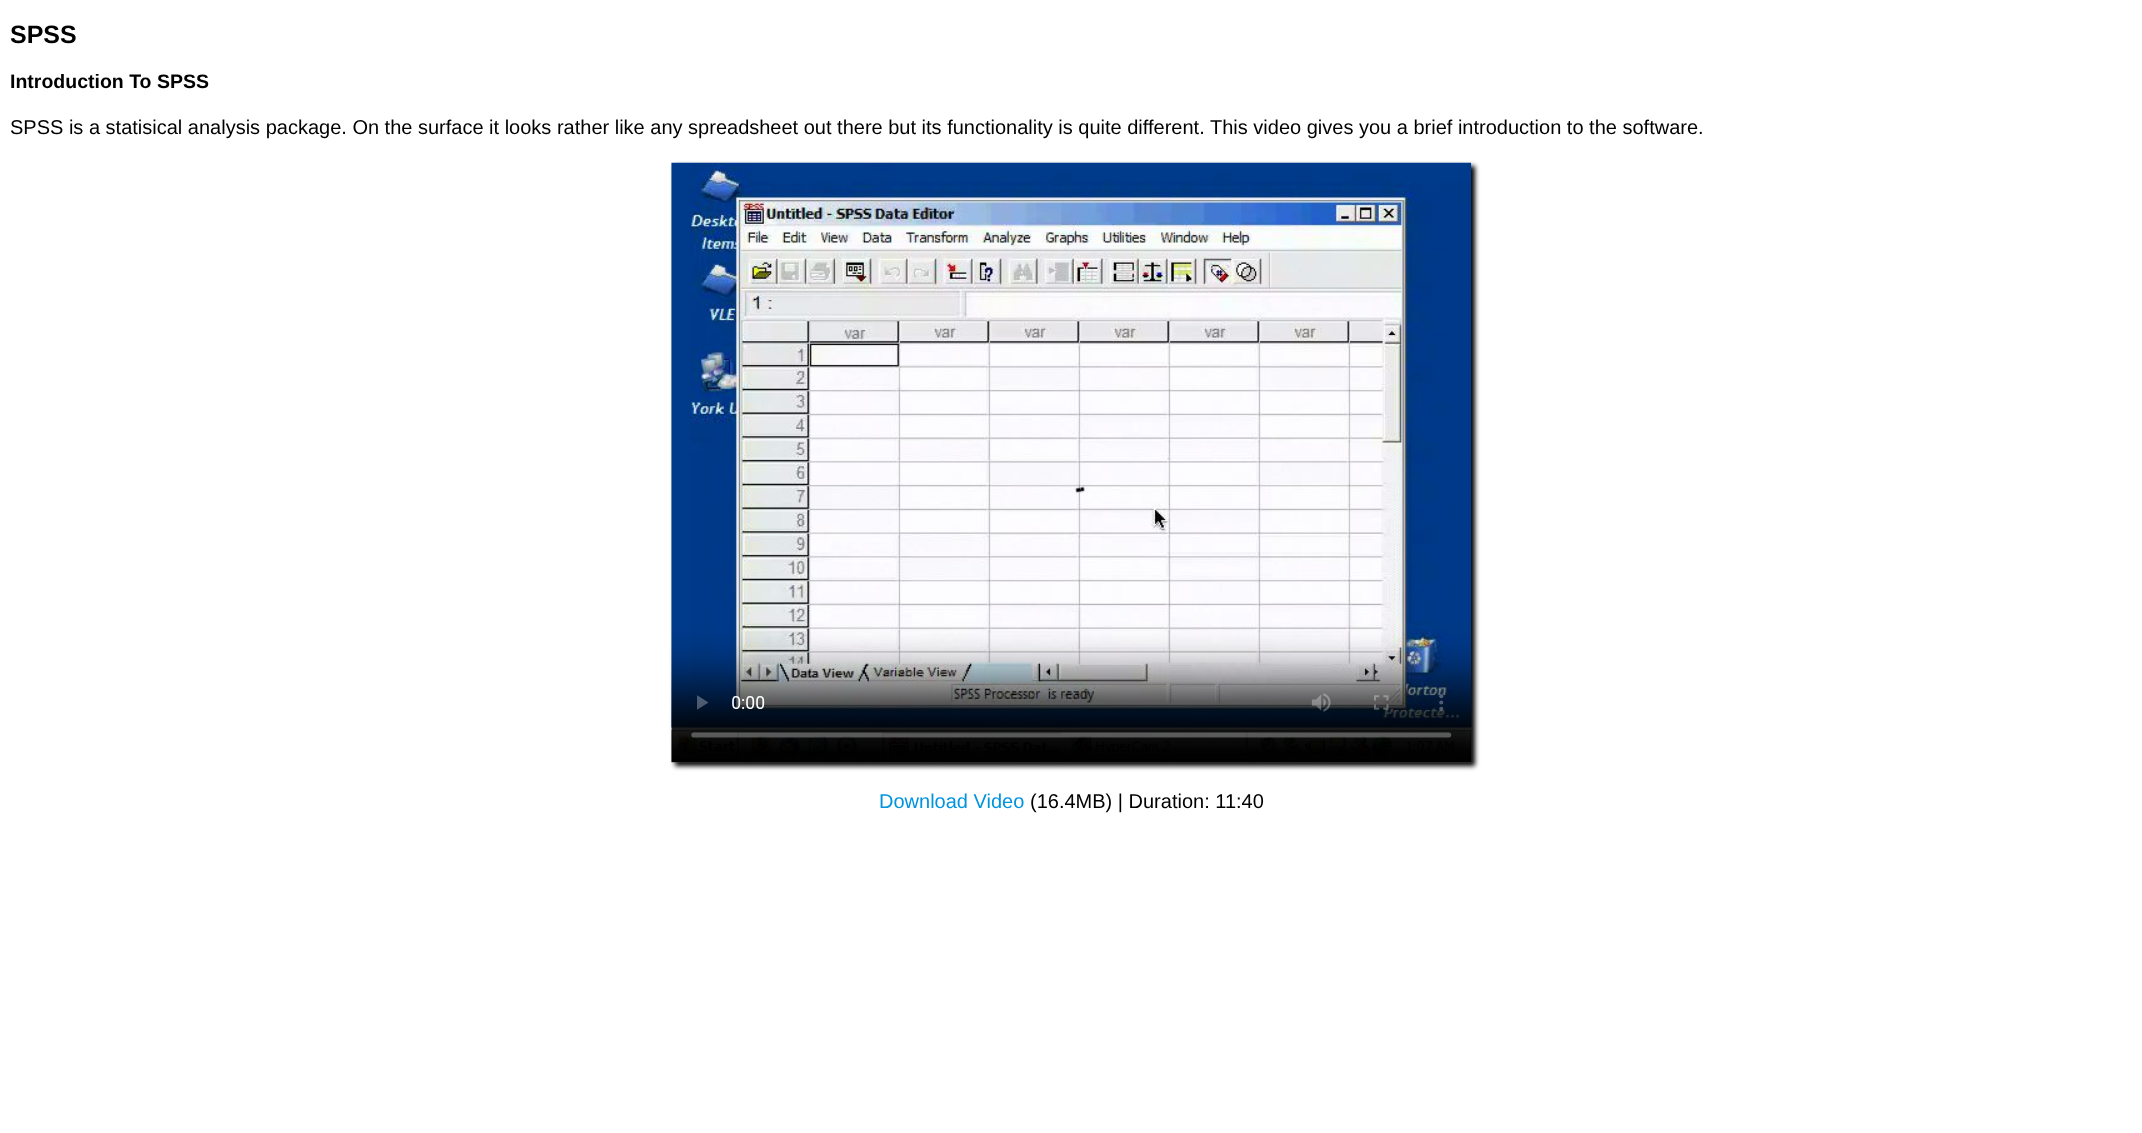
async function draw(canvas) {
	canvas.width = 2142;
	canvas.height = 1133;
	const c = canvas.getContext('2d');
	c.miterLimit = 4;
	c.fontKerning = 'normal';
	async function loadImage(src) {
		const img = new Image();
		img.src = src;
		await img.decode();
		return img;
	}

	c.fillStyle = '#fff';
	c.fillRect(0, 0, 2142, 1133);
	c.font = 'bold 25px Liberation Sans';
	c.fillStyle = '#000';
	c.fillText('SPSS', 10, 43);
	c.font = 'bold 19.5px Liberation Sans';
	c.fillText('Introduction To SPSS', 10, 88);
	c.font = '20px Liberation Sans';
	c.fillText('SPSS is a statisical analysis package. On the surface it looks rather like any spreadsheet out there but its functionality is quite different.', 10, 134);
	c.fillText('This video gives you a brief introduction to the software.', 1210, 134);
	c.filter = 'blur(2.5px)';
	c.beginPath();
	c.rect(675, 166, 800, 600);
	c.fill();
	c.filter = 'none';
	c.drawImage(await loadImage('img1.png'), 671, 162, 801, 601);
	c.fillStyle = '#0093df';
	c.fillText('Download Video', 879, 808);
	c.fillStyle = '#000';
	c.fillText('(16.4MB) | Duration: 11:40', 1030, 808);
}

draw(document.querySelector('canvas'));
